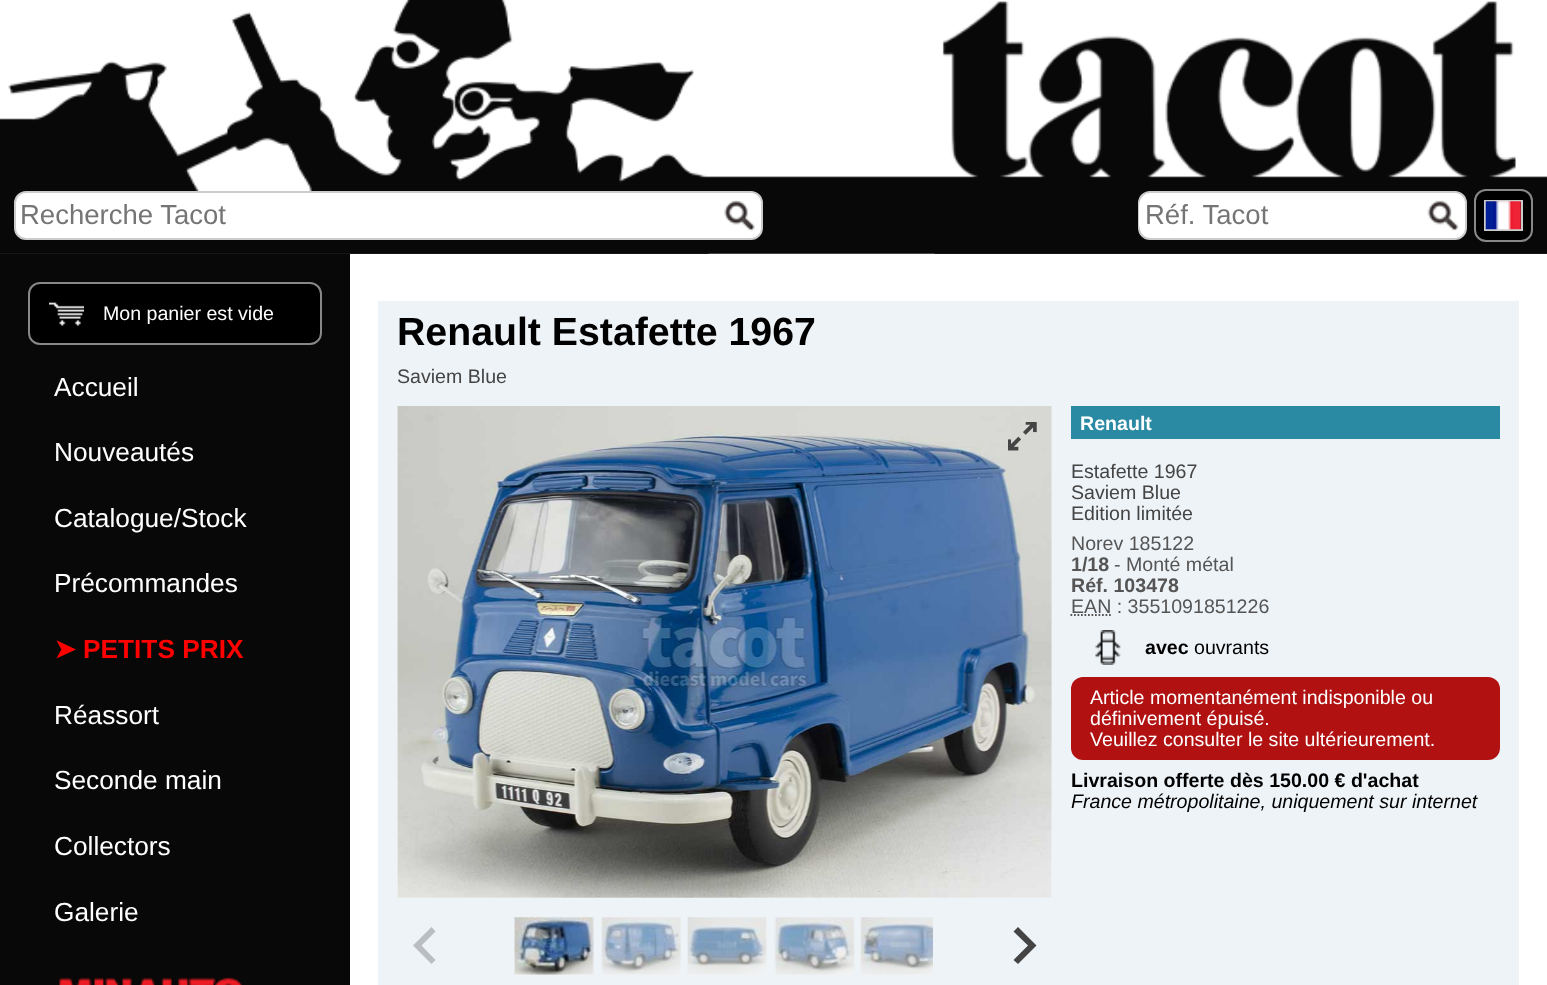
async function draw(canvas) {
	canvas.width = 1547;
	canvas.height = 985;
	const c = canvas.getContext('2d');
	c.miterLimit = 4;
	c.fontKerning = 'normal';
	async function loadImage(src) {
		const img = new Image();
		img.src = src;
		await img.decode();
		return img;
	}

	c.fillStyle = '#fff';
	c.fillRect(0, 0, 1547, 985);
	c.drawImage(await loadImage('img1.png'), 0, 0, 1547, 254);
	c.beginPath();
	c.roundRect(15, 192, 747, 47, 11);
	c.fill();
	c.strokeStyle = '#ccc';
	c.lineWidth = 2;
	c.stroke();
	c.beginPath();
	c.roundRect(16, 194, 700, 42, 12);
	c.fill();
	c.font = '27.5px Liberation Sans';
	c.fillStyle = '#757575';
	c.fillText('Recherche Tacot', 20, 224);
	c.fillStyle = '#fff';
	c.beginPath();
	c.roundRect(716, 193, 45, 45, 12);
	c.fill();
	c.drawImage(await loadImage('img2.png'), 724, 200, 31, 32);
	c.beginPath();
	c.roundRect(1139, 192, 327, 47, 11);
	c.fill();
	c.stroke();
	c.beginPath();
	c.roundRect(1139, 194, 280, 42, 12);
	c.fill();
	c.fillStyle = '#757575';
	c.fillText('Réf. Tacot', 1145, 224);
	c.fillStyle = '#fff';
	c.beginPath();
	c.roundRect(1419, 193, 46, 45, 12);
	c.fill();
	c.drawImage(await loadImage('img3.png'), 1427, 200, 32, 31);
	c.fillStyle = '#000';
	c.beginPath();
	c.roundRect(1475, 190, 57, 51, 11);
	c.fill();
	c.strokeStyle = '#888';
	c.stroke();
	c.strokeStyle = '#ccc';
	c.strokeRect(1485, 201, 37, 29);
	c.drawImage(await loadImage('img4.png'), 1485, 201, 36, 29);
	c.fillStyle = '#080808';
	c.fillRect(0, 254, 350, 731);
	c.fillStyle = '#000';
	c.beginPath();
	c.roundRect(28, 282, 294, 63, 12);
	c.fill();
	c.drawImage(await loadImage('img5.png'), 49, 302, 35, 24);
	c.beginPath();
	c.roundRect(29, 283, 292, 61, 11);
	c.strokeStyle = '#888';
	c.stroke();
	c.font = '19.6px Liberation Sans';
	c.fillStyle = '#fff';
	c.fillText('Mon panier est vide', 103, 320);
	c.font = '26.25px Liberation Sans';
	for (const [text, x, y] of [
		['Accueil', 54, 396],
		['Nouveautés', 54, 461],
		['Catalogue/Stock', 54, 527],
		['Précommandes', 54, 592],
	]) {
		c.fillText(text, x, y);
	}
	c.font = 'bold 26.25px DejaVu Sans';
	c.fillStyle = '#f00';
	c.fillText('➤', 54, 658);
	c.font = 'bold 26.25px Liberation Sans';
	c.fillText('PETITS PRIX', 83, 658);
	c.font = '26.25px Liberation Sans';
	c.fillStyle = '#fff';
	for (const [text, x, y] of [
		['Réassort', 54, 724],
		['Seconde main', 54, 789],
		['Collectors', 54, 855],
		['Galerie', 54, 921],
	]) {
		c.fillText(text, x, y);
	}
	c.drawImage(await loadImage('img6.png'), 59, 977, 183, 8);
	c.fillStyle = '#eef3f7';
	c.fillRect(378, 301, 1141, 684);
	c.font = 'bold 39.25px Liberation Sans';
	c.fillStyle = '#000';
	c.fillText('Renault Estafette 1967', 397, 345);
	c.font = '19.6px Liberation Sans';
	c.fillStyle = '#444';
	c.fillText('Saviem Blue', 397, 383);
	c.fillStyle = '#fff';
	c.fillRect(397, 406, 655, 492);
	c.drawImage(await loadImage('img7.png'), 397, 406, 655, 492);
	c.drawImage(await loadImage('img8.png'), 1008, 422, 29, 29);
	c.fillRect(515, 917, 78, 58);
	c.drawImage(await loadImage('img9.png'), 514, 917, 80, 58);
	c.fillStyle = '#f7f9fb';
	c.fillRect(602, 917, 79, 58);
	c.drawImage(await loadImage('img10.png'), 601, 917, 80, 58);
	c.fillRect(688, 917, 79, 58);
	c.drawImage(await loadImage('img11.png'), 687, 917, 80, 58);
	c.fillRect(775, 917, 79, 58);
	c.drawImage(await loadImage('img12.png'), 774, 917, 81, 58);
	c.fillRect(861, 917, 72, 58);
	c.drawImage(await loadImage('img13.png'), 860, 917, 73, 58);
	c.fillStyle = '#bbbec1';
	c.beginPath();
	c.moveTo(431.5, 927);
	c.lineTo(435.5, 931.5);
	c.lineTo(421.5, 945.5);
	c.lineTo(435.5, 960);
	c.lineTo(431.5, 964);
	c.lineTo(413, 945.5);
	c.closePath();
	c.fill();
	c.fillStyle = '#444';
	c.beginPath();
	c.moveTo(1018, 927);
	c.lineTo(1013.5, 931.5);
	c.lineTo(1028, 945.5);
	c.lineTo(1013.5, 960);
	c.lineTo(1018, 964);
	c.lineTo(1036.5, 945.5);
	c.closePath();
	c.fill();
	c.fillStyle = '#2b8aa3';
	c.fillRect(1071, 406, 429, 33);
	c.font = 'bold 19.6px Liberation Sans';
	c.fillStyle = '#fff';
	c.fillText('Renault', 1080, 430);
	c.font = '19.6px Liberation Sans';
	c.fillStyle = '#444';
	for (const [text, x, y] of [
		['Estafette 1967', 1071, 478],
		['Saviem Blue', 1071, 499],
		['Edition limitée', 1071, 520],
	]) {
		c.fillText(text, x, y);
	}
	c.fillStyle = '#555';
	c.fillText('Norev 185122', 1071, 550);
	c.font = 'bold 19.6px Liberation Sans';
	c.fillText('1/18', 1071, 571);
	c.font = '19.6px Liberation Sans';
	c.fillText('- Monté métal', 1114, 571);
	c.font = 'bold 19.6px Liberation Sans';
	c.fillText('Réf. 103478', 1071, 592);
	c.font = '19.6px Liberation Sans';
	c.fillText('EAN : 3551091851226', 1071, 613);
	c.beginPath();
	c.moveTo(1070.5, 615);
	c.lineTo(1111, 615);
	c.strokeStyle = '#555';
	c.lineWidth = 1.8;
	c.setLineDash([1.75, 1.75]);
	c.stroke();
	c.drawImage(await loadImage('img14.png'), 1095, 630, 26, 35);
	c.font = 'bold 19.6px Liberation Sans';
	c.fillStyle = '#000';
	c.fillText('avec', 1145, 654);
	c.font = '19.6px Liberation Sans';
	c.fillText('ouvrants', 1194, 654);
	c.fillStyle = '#b11111';
	c.beginPath();
	c.roundRect(1071, 677, 429, 83, 12);
	c.fill();
	c.fillStyle = '#fff';
	for (const [text, x, y] of [
		['Article momentanément indisponible ou', 1090, 704],
		['définivement épuisé.', 1090, 725],
		['Veuillez consulter le site ultérieurement.', 1090, 746],
	]) {
		c.fillText(text, x, y);
	}
	c.font = 'bold 19.6px Liberation Sans';
	c.fillStyle = '#000';
	c.fillText('Livraison offerte dès 150.00 € d\'achat', 1071, 787);
	c.font = 'italic 19.6px Liberation Sans';
	c.fillText('France métropolitaine, uniquement sur internet', 1071, 808);
}

draw(document.querySelector('canvas'));
